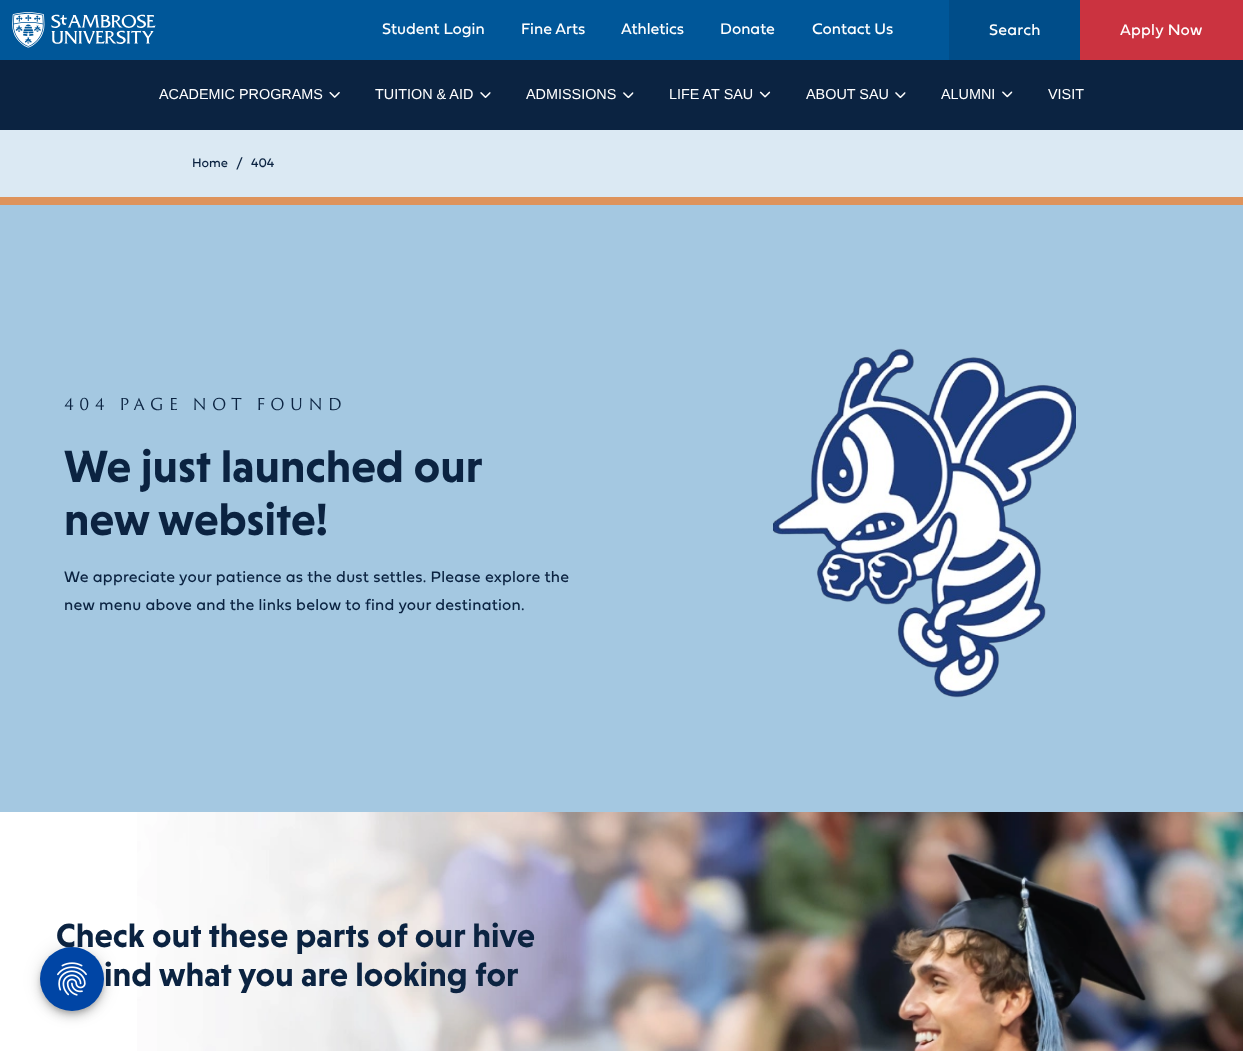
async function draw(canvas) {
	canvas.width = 1243;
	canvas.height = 1051;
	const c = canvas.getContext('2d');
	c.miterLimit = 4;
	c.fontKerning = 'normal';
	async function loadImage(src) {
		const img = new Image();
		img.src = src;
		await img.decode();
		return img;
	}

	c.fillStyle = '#fff';
	c.fillRect(0, 0, 1243, 1051);
	c.fillStyle = '#005799';
	c.fillRect(0, 0, 949, 60);
	c.drawImage(await loadImage('img1.png'), 12, 12, 144, 36);
	c.font = '16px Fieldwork';
	c.fillStyle = '#fff';
	for (const [text, x, y] of [
		['Student Login', 382, 34],
		['Fine Arts', 521, 34],
		['Athletics', 621, 34],
		['Donate', 720, 34],
		['Contact Us', 812, 34],
	]) {
		c.fillText(text, x, y);
	}
	c.fillStyle = '#004d89';
	c.fillRect(949, 0, 131, 60);
	c.letterSpacing = '0.25px';
	c.fillStyle = '#fff';
	c.fillText('Search', 989, 35);
	c.fillStyle = '#cb3340';
	c.fillRect(1080, 0, 163, 60);
	c.fillStyle = '#fff';
	c.fillText('Apply Now', 1120, 35);
	c.fillStyle = '#0b2341';
	c.fillRect(0, 60, 1243, 70);
	c.letterSpacing = '0px';
	c.font = '14.4px Liberation Sans';
	c.fillStyle = '#fff';
	c.fillText('ACADEMIC PROGRAMS', 159, 99);
	c.drawImage(await loadImage('img2.png'), 329, 92, 11, 6);
	c.fillText('TUITION & AID', 375, 99);
	c.drawImage(await loadImage('img3.png'), 480, 92, 11, 6);
	c.fillText('ADMISSIONS', 526, 99);
	c.drawImage(await loadImage('img4.png'), 623, 92, 11, 7);
	c.fillText('LIFE AT SAU', 669, 99);
	c.drawImage(await loadImage('img5.png'), 759, 91, 12, 7);
	c.fillText('ABOUT SAU', 806, 99);
	c.drawImage(await loadImage('img6.png'), 895, 92, 11, 6);
	c.fillText('ALUMNI', 941, 99);
	c.drawImage(await loadImage('img7.png'), 1002, 91, 11, 7);
	c.fillText('VISIT', 1048, 99);
	c.fillStyle = '#dbe9f3';
	c.fillRect(0, 130, 1243, 67);
	c.font = '13px Fieldwork';
	c.fillStyle = '#0b2341';
	for (const [text, x, y] of [
		['Home', 192, 167],
		['/', 236, 167],
		['404', 251, 167],
	]) {
		c.fillText(text, x, y);
	}
	c.fillStyle = '#a4c8e1';
	c.fillRect(0, 205, 1243, 607);
	c.fillStyle = '#de935b';
	c.fillRect(0, 197, 1243, 8);
	c.letterSpacing = '5.1px';
	c.font = '16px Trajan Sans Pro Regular';
	c.fillStyle = '#0b2341';
	c.fillText('404 PAGE NOT FOUND', 64, 410);
	c.letterSpacing = '0px';
	c.font = 'bold 46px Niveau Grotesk';
	c.fillText('We just launched our', 64, 482);
	c.fillText('new website!', 64, 535);
	c.letterSpacing = '0.25px';
	c.font = '16px Fieldwork';
	c.fillText('We appreciate your patience as the dust settles. Please explore the', 64, 582);
	c.fillText('new menu above and the links below to find your destination.', 64, 610);
	c.drawImage(await loadImage('img8.png'), 773, 348, 303, 350);
	c.fillStyle = '#0000001f';
	c.filter = 'blur(9px)';
	c.beginPath();
	c.roundRect(40, 948, 64, 64, 32);
	c.fill();
	c.filter = 'none';
	c.fillStyle = '#00000024';
	c.filter = 'blur(5px)';
	c.beginPath();
	c.roundRect(40, 953, 64, 64, 32);
	c.fill();
	c.filter = 'none';
	c.fillStyle = '#00000033';
	c.filter = 'blur(2.5px)';
	c.beginPath();
	c.roundRect(41, 951, 62, 62, 31);
	c.fill();
	c.filter = 'none';
	c.drawImage(await loadImage('img10.png'), 137, 812, 1106, 239);
	c.letterSpacing = '0px';
	c.font = 'bold 34px Niveau Grotesk';
	c.fillStyle = '#0b2341';
	c.fillText('Check out these parts of our hive', 56, 947);
	c.fillStyle = '#0045a5';
	c.beginPath();
	c.arc(72, 979, 32, 0, 2 * Math.PI);
	c.fill();
	c.drawImage(await loadImage('img9.png'), 57, 962, 30, 34);
	c.fillStyle = '#0b2341';
	c.fillText('ind what you are looking for', 104, 986);
}

draw(document.querySelector('canvas'));
